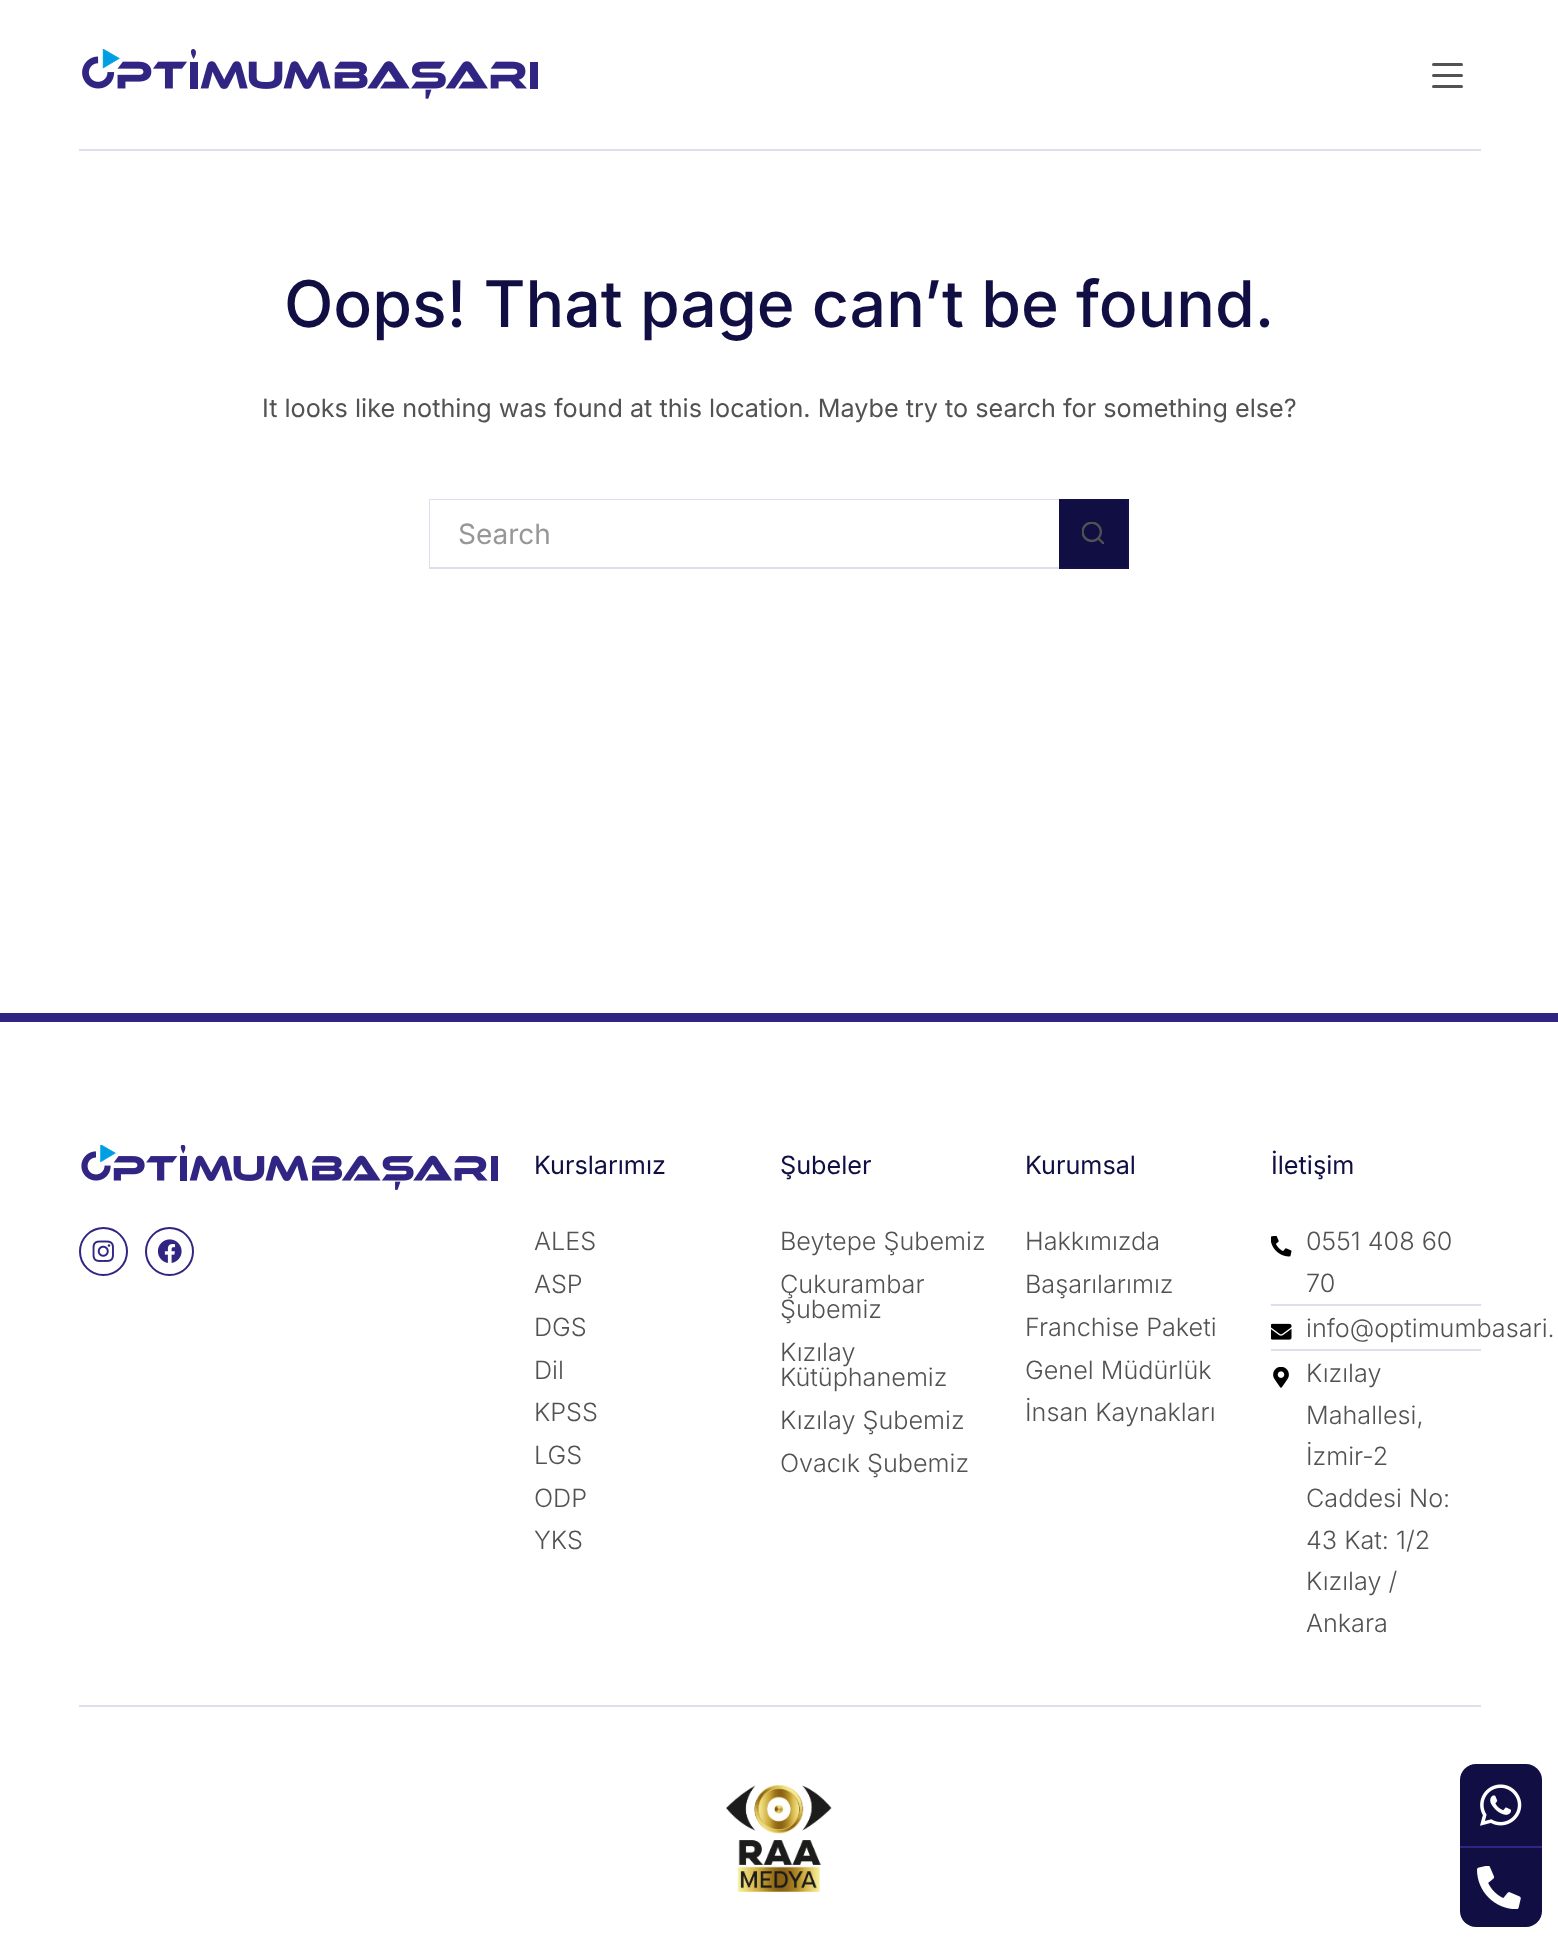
async function draw(canvas) {
	canvas.width = 1558;
	canvas.height = 1943;
	const c = canvas.getContext('2d');
	c.miterLimit = 4;
	c.fontKerning = 'normal';
	async function loadImage(src) {
		const img = new Image();
		img.src = src;
		await img.decode();
		return img;
	}

	c.fillStyle = '#fff';
	c.fillRect(0, 0, 1558, 1943);
	c.fillStyle = '#e0deec';
	c.fillRect(79, 149, 1402, 2);
	c.drawImage(await loadImage('img1.png'), 82, 49, 456, 50);
	c.fillStyle = '#525252';
	c.beginPath();
	c.roundRect(1432, 63, 31, 3, 1.5);
	c.fill();
	c.beginPath();
	c.roundRect(1432, 74, 31, 3, 1.5);
	c.fill();
	c.beginPath();
	c.roundRect(1432, 85, 31, 3, 1.5);
	c.fill();
	c.font = '500 64.4px Inter';
	c.fillStyle = '#110e44';
	c.fillText('Oops! That page can’t be found.', 284, 327);
	c.font = '25.2px Inter';
	c.fillStyle = '#525252';
	c.fillText('It looks like nothing was found at this location. Maybe try to search for something else?', 262, 417);
	c.fillStyle = '#e0deec';
	c.beginPath();
	c.moveTo(429, 499);
	c.lineTo(1059, 499);
	c.lineTo(1059, 500);
	c.lineTo(430, 500);
	c.closePath();
	c.fill();
	c.beginPath();
	c.moveTo(1059, 569);
	c.lineTo(429, 569);
	c.lineTo(430, 567);
	c.lineTo(1059, 567);
	c.closePath();
	c.fill();
	c.fillStyle = '#2f248226';
	c.beginPath();
	c.moveTo(429, 569);
	c.lineTo(429, 499);
	c.lineTo(430, 500);
	c.lineTo(430, 567);
	c.closePath();
	c.fill();
	c.font = '28px Inter';
	c.fillStyle = '#979797';
	c.fillText('Search', 458, 544);
	c.fillStyle = '#110e44';
	c.fillRect(1059, 499, 70, 70);
	c.fillStyle = '#16114d';
	c.beginPath();
	c.moveTo(1059, 499);
	c.lineTo(1129, 499);
	c.lineTo(1127, 500);
	c.lineTo(1059, 500);
	c.closePath();
	c.fill();
	c.beginPath();
	c.moveTo(1129, 499);
	c.lineTo(1129, 569);
	c.lineTo(1127, 567);
	c.lineTo(1127, 500);
	c.closePath();
	c.fill();
	c.fillStyle = '#2f248226';
	c.beginPath();
	c.moveTo(1129, 569);
	c.lineTo(1059, 569);
	c.lineTo(1059, 567);
	c.lineTo(1127, 567);
	c.closePath();
	c.fill();
	c.drawImage(await loadImage('img2.png'), 1082, 522, 22, 22);
	c.fillStyle = '#302583';
	c.fillRect(0, 1013, 1558, 9);
	c.drawImage(await loadImage('img3.png'), 81, 1145, 417, 45);
	c.beginPath();
	c.arc(103.5, 1251.5, 23.5, 0, 2 * Math.PI);
	c.strokeStyle = '#302583';
	c.lineWidth = 2;
	c.stroke();
	c.drawImage(await loadImage('img4.png'), 92, 1240, 22, 22);
	c.beginPath();
	c.arc(169.5, 1251.5, 23.5, 0, 2 * Math.PI);
	c.stroke();
	c.drawImage(await loadImage('img5.png'), 158, 1239, 24, 24);
	c.font = '25.2px Inter';
	c.fillStyle = '#110e44';
	c.fillText('Kurslarımız', 534, 1174);
	c.font = '300 25.2px Inter';
	c.fillStyle = '#525252';
	for (const [text, x, y] of [
		['ALES', 534, 1250],
		['ASP', 534, 1293],
		['DGS', 534, 1336],
		['Dil', 534, 1379],
		['KPSS', 534, 1421],
		['LGS', 534, 1464],
		['ODP', 534, 1507],
		['YKS', 534, 1549],
	]) {
		c.fillText(text, x, y);
	}
	c.font = '25.2px Inter';
	c.fillStyle = '#110e44';
	c.fillText('Şubeler', 780, 1174);
	c.font = '300 25.2px Inter';
	c.fillStyle = '#525252';
	for (const [text, x, y] of [
		['Beytepe Şubemiz', 780, 1250],
		['Çukurambar', 780, 1293],
		['Şubemiz', 780, 1318],
		['Kızılay', 780, 1361],
		['Kütüphanemiz', 780, 1386],
		['Kızılay Şubemiz', 780, 1429],
		['Ovacık Şubemiz', 780, 1472],
	]) {
		c.fillText(text, x, y);
	}
	c.font = '25.2px Inter';
	c.fillStyle = '#110e44';
	c.fillText('Kurumsal', 1025, 1174);
	c.font = '300 25.2px Inter';
	c.fillStyle = '#525252';
	for (const [text, x, y] of [
		['Hakkımızda', 1025, 1250],
		['Başarılarımız', 1025, 1293],
		['Franchise Paketi', 1025, 1336],
		['Genel Müdürlük', 1025, 1379],
		['İnsan Kaynakları', 1025, 1421],
	]) {
		c.fillText(text, x, y);
	}
	c.font = '25.2px Inter';
	c.fillStyle = '#110e44';
	c.fillText('İletişim', 1271, 1174);
	c.drawImage(await loadImage('img6.png'), 1271, 1236, 21, 21);
	c.font = '300 25.2px Inter';
	c.fillStyle = '#525252';
	c.fillText('0551 408 60', 1306, 1250);
	c.fillText('70', 1306, 1292);
	c.fillStyle = '#e0deec';
	c.fillRect(1271, 1304, 210, 2);
	c.drawImage(await loadImage('img7.png'), 1271, 1323, 21, 17);
	c.fillStyle = '#525252';
	c.fillText('info@optimumbasari.', 1306, 1337);
	c.fillStyle = '#e0deec';
	c.fillRect(1271, 1349, 210, 2);
	c.drawImage(await loadImage('img8.png'), 1273, 1367, 16, 21);
	c.fillStyle = '#525252';
	for (const [text, x, y] of [
		['Kızılay', 1306, 1382],
		['Mahallesi,', 1306, 1424],
		['İzmir-2', 1306, 1465],
		['Caddesi No:', 1306, 1507],
		['43 Kat: 1/2', 1306, 1549],
		['Kızılay /', 1306, 1590],
		['Ankara', 1306, 1632],
	]) {
		c.fillText(text, x, y);
	}
	c.fillStyle = '#e0deec';
	c.fillRect(79, 1705, 1402, 2);
	c.drawImage(await loadImage('img9.png'), 726, 1785, 106, 107);
	c.fillStyle = '#110e44';
	c.beginPath();
	c.roundRect(1460, 1764, 82, 163, 16);
	c.fill();
	c.fillStyle = '#302583';
	c.fillRect(1460, 1846, 82, 2);
	c.drawImage(await loadImage('img10.png'), 1480, 1784, 42, 42);
	c.drawImage(await loadImage('img11.png'), 1477, 1866, 44, 43);
}

draw(document.querySelector('canvas'));
